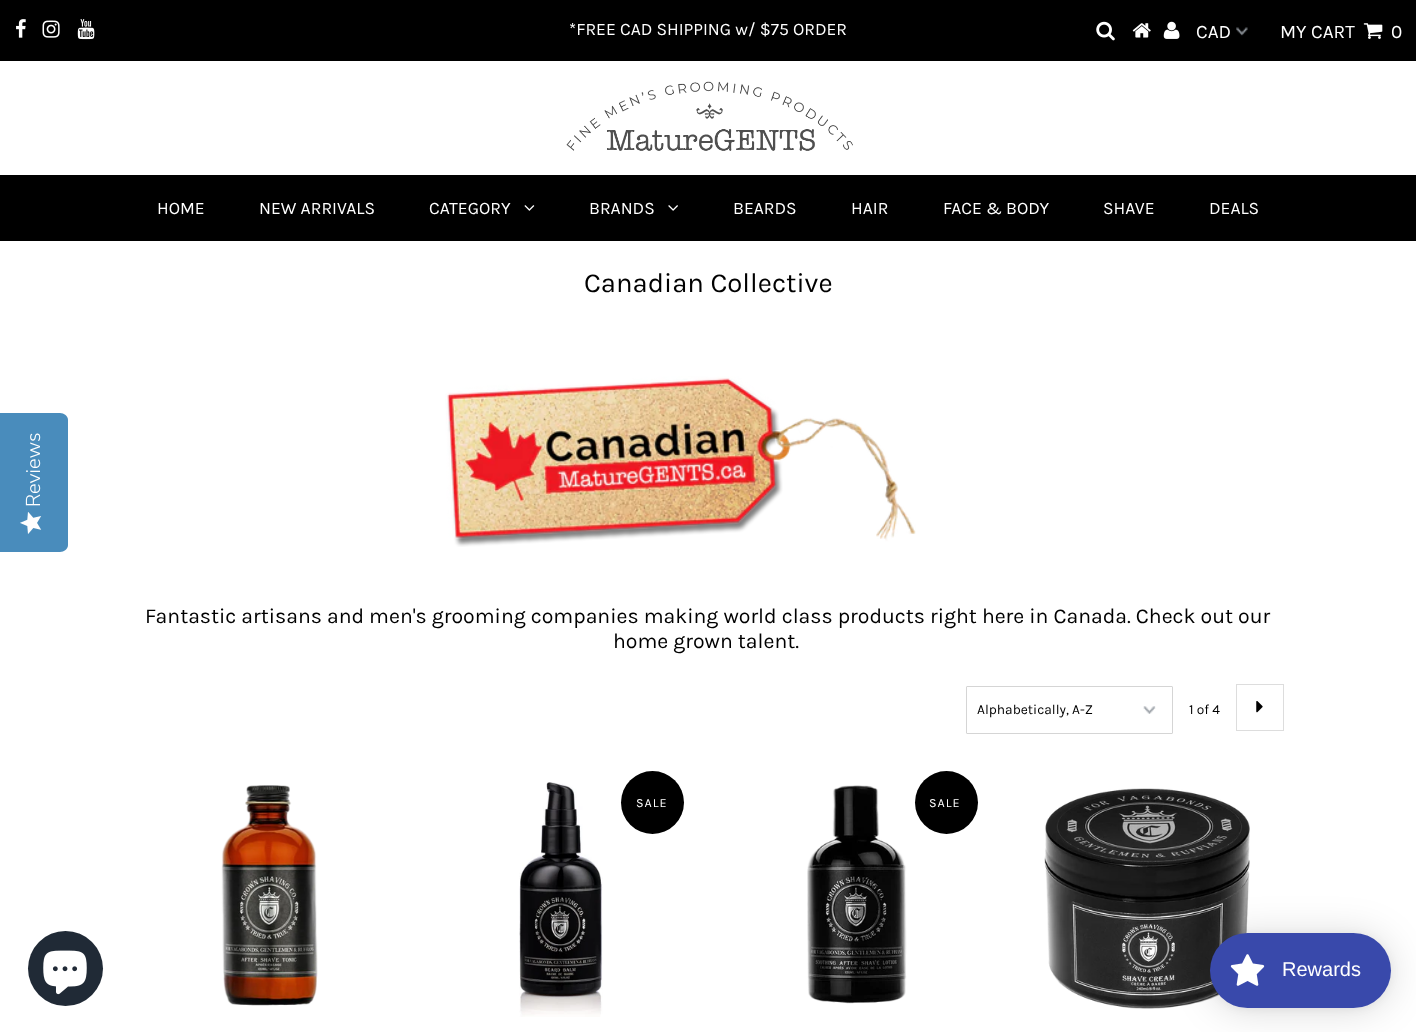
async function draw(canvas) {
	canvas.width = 1416;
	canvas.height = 1032;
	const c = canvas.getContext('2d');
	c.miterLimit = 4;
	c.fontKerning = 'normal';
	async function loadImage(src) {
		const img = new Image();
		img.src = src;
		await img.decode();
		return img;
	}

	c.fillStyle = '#fff';
	c.fillRect(0, 0, 1416, 1032);
	c.fillStyle = '#498cbc';
	c.beginPath();
	c.moveTo(0, 552);
	c.lineTo(0, 413);
	c.lineTo(60, 413);
	c.bezierCurveTo(64, 413, 68, 416, 68, 420);
	c.lineTo(68, 545);
	c.bezierCurveTo(68, 549, 64, 552, 60, 552);
	c.closePath();
	c.fill();
	c.font = '300 20px Nunito Sans';
	c.fillStyle = '#fff';
	c.save();
	c.translate(40, 507);
	c.rotate(-90 * Math.PI / 180);
	c.fillText('Reviews', 0, 0);
	c.restore();
	c.drawImage(await loadImage('img1.png'), 20, 512, 22, 22);
	c.fillStyle = '#000';
	c.fillRect(0, 0, 1416, 61);
	c.drawImage(await loadImage('img2.png'), 16, 19, 10, 19);
	c.drawImage(await loadImage('img3.png'), 42, 20, 18, 18);
	c.drawImage(await loadImage('img4.png'), 77, 19, 18, 21);
	c.font = '17.5px Karla';
	c.fillStyle = '#fff';
	c.fillText('*FREE CAD SHIPPING w/ $75 ORDER', 569, 35);
	c.drawImage(await loadImage('img5.png'), 1096, 21, 19, 20);
	c.drawImage(await loadImage('img6.png'), 1132, 23, 19, 15);
	c.drawImage(await loadImage('img7.png'), 1163, 21, 17, 18);
	c.drawImage(await loadImage('img8.png'), 1236, 27, 12, 9);
	c.font = '19px Karla';
	c.fillText('CAD', 1196, 38);
	c.fillText('MY CART', 1280, 38);
	c.drawImage(await loadImage('img9.png'), 1363, 23, 20, 16);
	c.fillText('0', 1391, 38);
	c.drawImage(await loadImage('img10.png'), 566, 81, 287, 70);
	c.fillStyle = '#000';
	c.fillRect(0, 175, 1416, 66);
	c.font = '17.5px Karla';
	c.fillStyle = '#fff';
	for (const [text, x, y] of [
		['HOME', 157, 214],
		['NEW ARRIVALS', 259, 214],
		['CATEGORY', 429, 214],
	]) {
		c.fillText(text, x, y);
	}
	c.drawImage(await loadImage('img11.png'), 524, 205, 11, 6);
	c.fillText('BRANDS', 589, 214);
	c.drawImage(await loadImage('img12.png'), 668, 205, 10, 6);
	for (const [text, x, y] of [
		['BEARDS', 733, 214],
		['HAIR', 851, 214],
		['FACE & BODY', 943, 214],
		['SHAVE', 1103, 214],
		['DEALS', 1209, 214],
	]) {
		c.fillText(text, x, y);
	}
	c.font = '27.5px Karla';
	c.fillStyle = '#000';
	c.fillText('Canadian Collective', 584, 292);
	c.drawImage(await loadImage('img13.png'), 445, 376, 471, 171);
	c.font = '21.25px Karla';
	c.fillText('Fantastic artisans and men\'s grooming companies making world class products right here in Canada. Check out our', 145, 623);
	c.fillText('home grown talent.', 613, 648);
	c.drawImage(await loadImage('img14.png'), 1143, 706, 13, 8);
	c.beginPath();
	c.roundRect(966.5, 686.5, 206, 47, 0.5);
	c.strokeStyle = '#d5d5d5';
	c.stroke();
	c.font = '13.75px Karla';
	c.fillText('Alphabetically, A-Z', 977, 714);
	c.fillText('1 of 4', 1189, 714);
	c.strokeStyle = '#ddd';
	c.strokeRect(1236.5, 684.5, 47, 46);
	c.drawImage(await loadImage('img15.png'), 1256, 701, 7, 12);
	c.drawImage(await loadImage('img16.png'), 221, 785, 97, 221);
	c.drawImage(await loadImage('img17.png'), 519, 782, 84, 235);
	c.beginPath();
	c.arc(652.5, 802.5, 31.5, 0, 2 * Math.PI);
	c.fill();
	c.letterSpacing = '1px';
	c.font = '12.5px Karla';
	c.fillStyle = '#fff';
	c.fillText('SALE', 636, 807);
	c.drawImage(await loadImage('img18.png'), 807, 785, 100, 219);
	c.fillStyle = '#000';
	c.beginPath();
	c.arc(946.5, 802.5, 31.5, 0, 2 * Math.PI);
	c.fill();
	c.fillStyle = '#fff';
	c.fillText('SALE', 929, 807);
	c.drawImage(await loadImage('img19.png'), 1044, 788, 206, 221);
	c.fillStyle = '#202a36';
	c.beginPath();
	c.arc(65.5, 968.5, 37.5, 0, 2 * Math.PI);
	c.fill();
	c.drawImage(await loadImage('img20.png'), 43, 950, 44, 45);
	c.fillStyle = '#00000026';
	c.filter = 'blur(19px)';
	c.beginPath();
	c.roundRect(1210, 935, 181, 75, 37.5);
	c.fill();
	c.filter = 'none';
	c.fillStyle = '#0000000d';
	c.filter = 'blur(4px)';
	c.beginPath();
	c.roundRect(1210, 934, 181, 75, 37.5);
	c.fill();
	c.filter = 'none';
	c.fillStyle = '#3949ab';
	c.beginPath();
	c.roundRect(1210, 933, 181, 75, 37.5);
	c.fill();
	c.drawImage(await loadImage('img21.png'), 1230, 954, 35, 32);
	c.letterSpacing = '0px';
	c.font = '20px Liberation Sans';
	c.fillStyle = '#fff';
	c.fillText('Rewards', 1282, 976);
}

draw(document.querySelector('canvas'));
